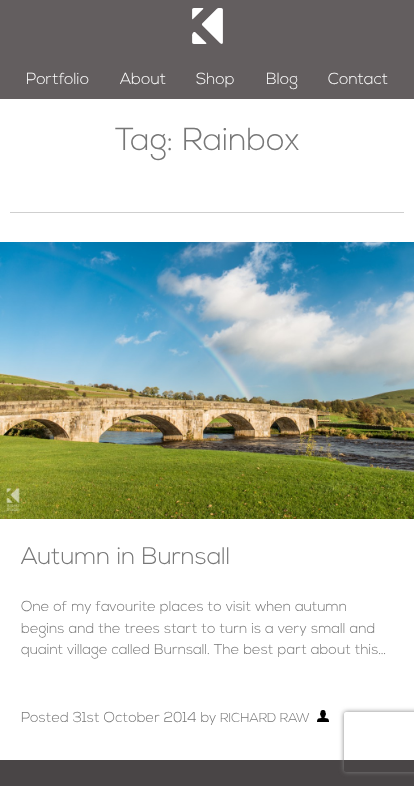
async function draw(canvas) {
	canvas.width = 414;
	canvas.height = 786;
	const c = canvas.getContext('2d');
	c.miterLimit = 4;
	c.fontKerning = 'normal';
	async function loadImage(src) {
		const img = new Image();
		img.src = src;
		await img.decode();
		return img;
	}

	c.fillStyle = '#fff';
	c.fillRect(0, 0, 414, 786);
	c.fillStyle = '#635e5f';
	c.fillRect(0, 0, 414, 99);
	c.drawImage(await loadImage('img1.png'), 192, 8, 31, 36);
	c.font = '300 16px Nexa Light';
	c.fillStyle = '#fff';
	for (const [text, x, y] of [
		['Portfolio', 26, 84],
		['About', 120, 84],
		['Shop', 196, 84],
		['Blog', 266, 84],
		['Contact', 328, 84],
	]) {
		c.fillText(text, x, y);
	}
	c.fillStyle = '#cfcfcf';
	c.fillRect(10, 212, 394, 1);
	c.font = '300 31.75px Nexa Light';
	c.fillStyle = '#777';
	c.fillText('Tag: Rainbox', 115, 150);
	c.drawImage(await loadImage('img2.png'), 0, 242, 414, 277);
	c.font = '300 24px Nexa Light';
	c.fillText('Autumn in Burnsall', 21, 564);
	c.font = '300 14.4px Nexa Light';
	for (const [text, x, y] of [
		['One of my favourite places to visit when autumn', 21, 611],
		['begins and the trees start to turn is a very small and', 21, 633],
		['quaint village called Burnsall. The best part about this…', 21, 654],
		['Posted 31st October 2014 by', 21, 722],
	]) {
		c.fillText(text, x, y);
	}
	c.font = '300 13px Nexa Light';
	c.fillText('RICHARD RAW', 220, 722);
	c.drawImage(await loadImage('img3.png'), 317, 710, 12, 12);
	c.fillStyle = '#494546';
	c.fillRect(0, 760, 414, 26);
	c.save();
	c.beginPath();
	c.moveTo(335, 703);
	c.lineTo(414, 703);
	c.lineTo(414, 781);
	c.lineTo(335, 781);
	c.closePath();
	c.moveTo(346, 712);
	c.lineTo(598, 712);
	c.bezierCurveTo(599, 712, 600, 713, 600, 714);
	c.lineTo(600, 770);
	c.bezierCurveTo(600, 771, 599, 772, 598, 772);
	c.lineTo(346, 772);
	c.bezierCurveTo(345, 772, 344, 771, 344, 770);
	c.lineTo(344, 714);
	c.bezierCurveTo(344, 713, 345, 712, 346, 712);
	c.closePath();
	c.clip('evenodd');
	c.fillStyle = '#808080';
	c.filter = 'blur(2.5px)';
	c.beginPath();
	c.roundRect(344, 712, 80, 60, 2);
	c.fill();
	c.filter = 'none';
	c.restore();
}

draw(document.querySelector('canvas'));
